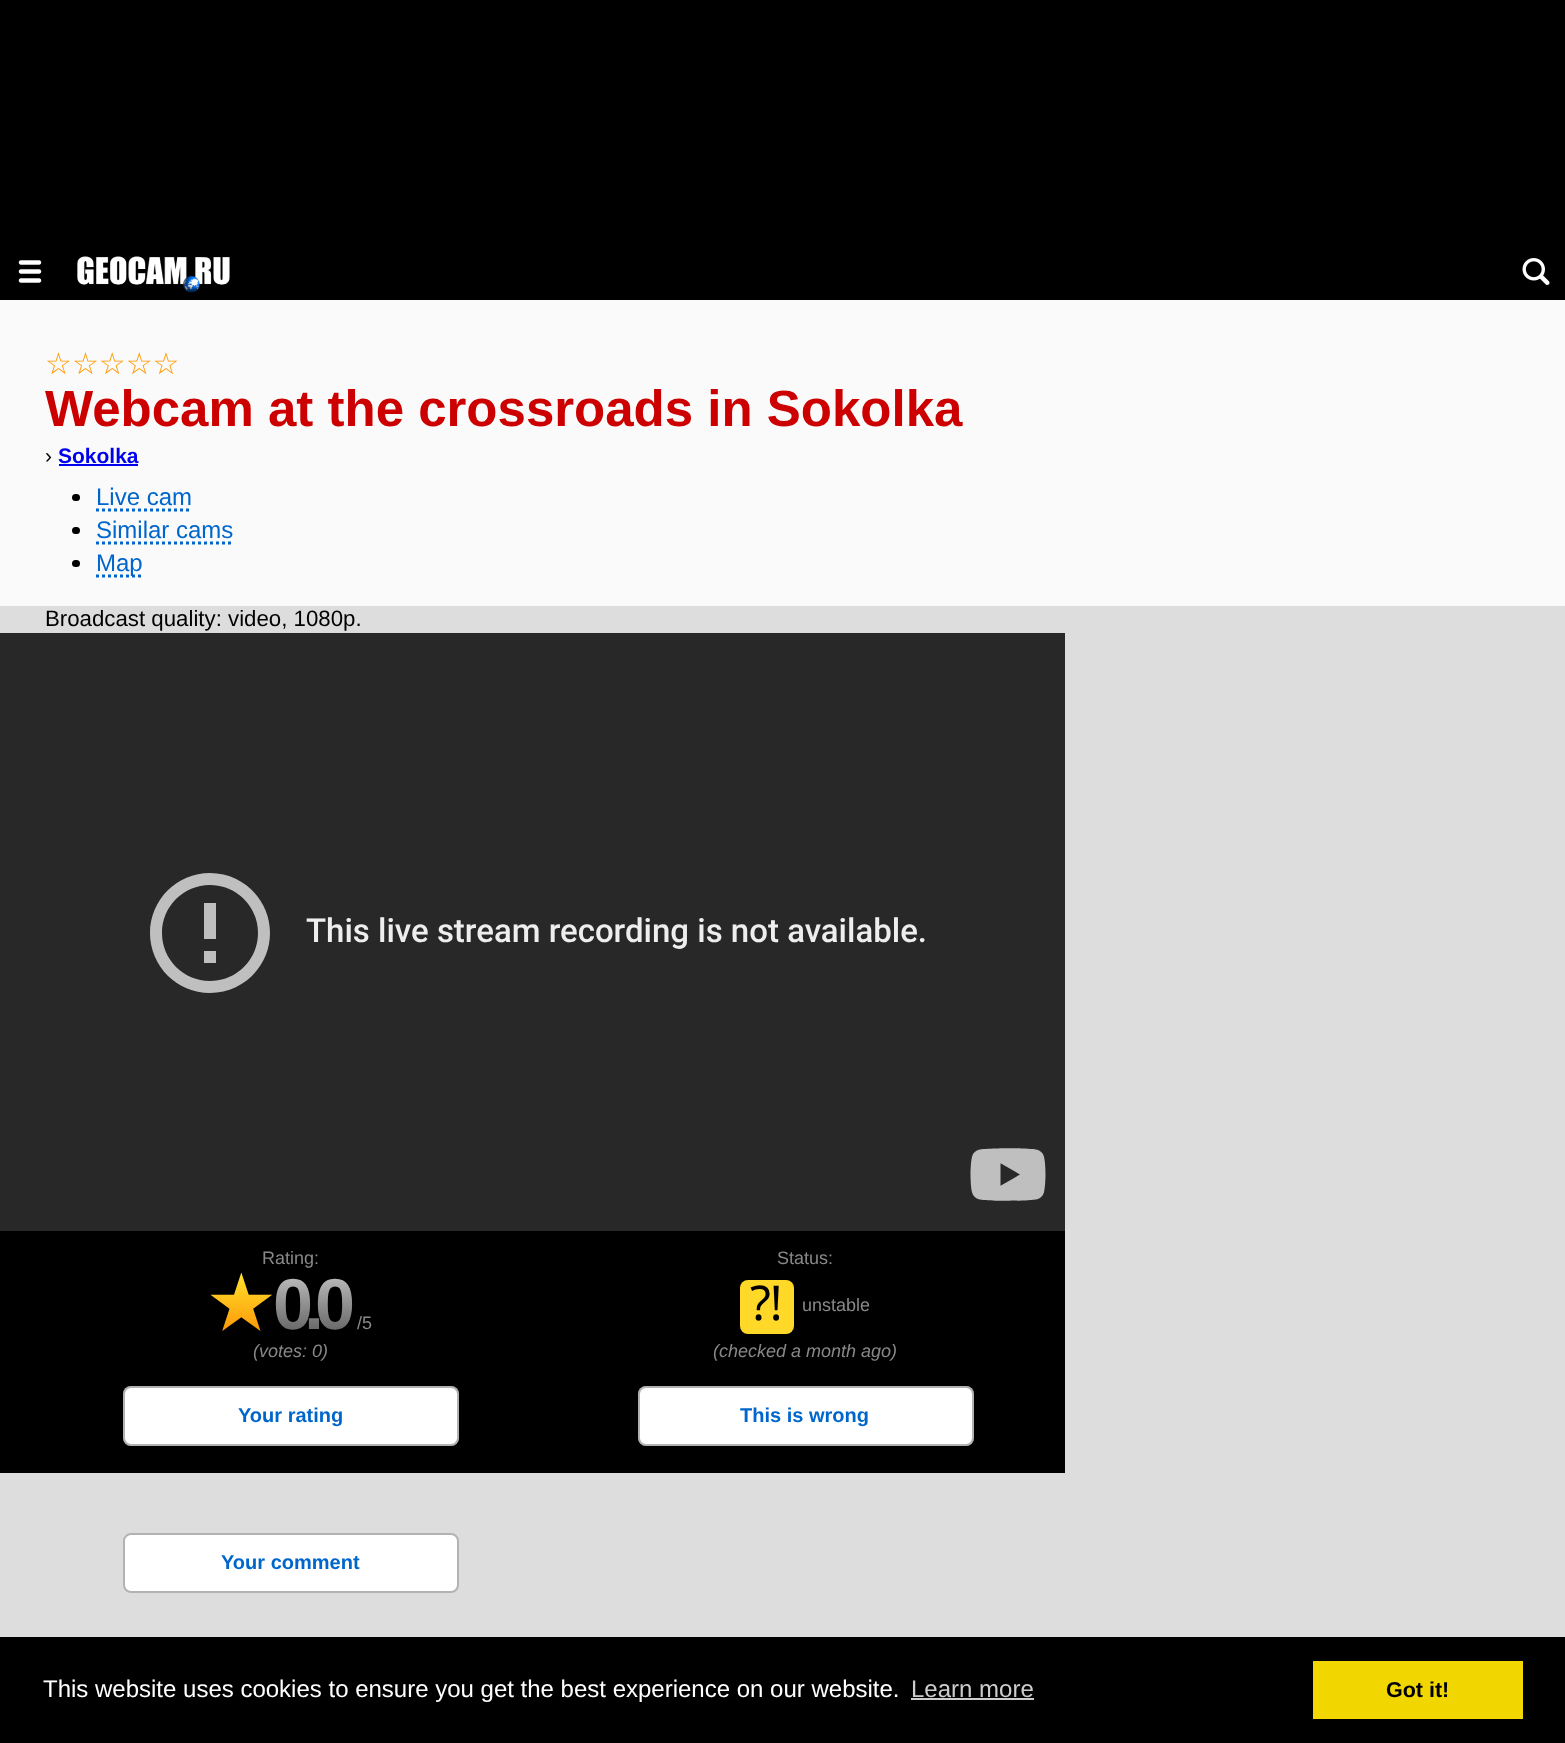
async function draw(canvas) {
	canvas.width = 1565;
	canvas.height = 1743;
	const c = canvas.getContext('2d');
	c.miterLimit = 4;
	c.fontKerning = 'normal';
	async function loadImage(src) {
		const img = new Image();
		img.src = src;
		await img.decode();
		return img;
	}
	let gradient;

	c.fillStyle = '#000';
	c.fillRect(0, 0, 1565, 1743);
	c.drawImage(await loadImage('img1.png'), 18, 260, 24, 23);
	c.drawImage(await loadImage('img2.png'), 77, 256, 153, 37);
	c.drawImage(await loadImage('img3.png'), 1522, 258, 28, 27);
	c.fillStyle = '#fafafa';
	c.fillRect(0, 300, 1565, 306);
	c.font = '30px DejaVu Sans';
	c.fillStyle = '#f90';
	c.fillText('☆☆☆☆☆', 45, 374);
	c.font = 'bold 51px Liberation Sans';
	c.fillStyle = '#c00';
	c.fillText('Webcam at the crossroads in Sokolka', 45, 426);
	c.font = '21px Liberation Sans';
	c.fillStyle = '#000';
	c.fillText('›', 45, 463);
	c.font = 'bold 21px Liberation Sans';
	c.fillStyle = '#00e';
	c.fillText('Sokolka', 58, 463);
	c.fillRect(59, 464, 79, 2);
	c.fillStyle = '#000';
	c.beginPath();
	c.roundRect(72, 494, 8, 7, 3.5);
	c.fill();
	c.font = '24px Liberation Sans';
	c.fillStyle = '#06c';
	c.fillText('Live cam', 96, 505);
	c.beginPath();
	c.moveTo(96, 510);
	c.lineTo(192, 510);
	c.strokeStyle = '#06c';
	c.lineWidth = 3;
	c.setLineDash([3, 3]);
	c.stroke();
	c.fillStyle = '#000';
	c.beginPath();
	c.roundRect(72, 527, 8, 7, 3.5);
	c.fill();
	c.fillStyle = '#06c';
	c.fillText('Similar cams', 96, 538);
	c.beginPath();
	c.moveTo(96, 543);
	c.lineTo(234, 543);
	c.stroke();
	c.fillStyle = '#000';
	c.beginPath();
	c.roundRect(72, 560, 8, 7, 3.5);
	c.fill();
	c.beginPath();
	c.moveTo(96, 576);
	c.lineTo(142.5, 576);
	c.stroke();
	c.fillStyle = '#06c';
	c.fillText('Map', 96, 571);
	c.fillStyle = '#ddd';
	c.fillRect(0, 606, 1565, 1031);
	c.font = '22.25px Liberation Sans';
	c.fillStyle = '#000';
	c.fillText('Broadcast quality: video, 1080p.', 45, 626);
	c.fillRect(0, 1231, 1065, 242);
	c.drawImage(await loadImage('img4.png'), 0, 633, 1065, 598);
	c.font = '18px Liberation Sans';
	c.fillStyle = '#888';
	c.fillText('Rating:', 262, 1264);
	c.font = 'bold 72px DejaVu Sans';
	gradient = c.createLinearGradient(241, 1264, 241, 1344);
	gradient.addColorStop(0, '#fe3');
	gradient.addColorStop(1, '#f80');
	c.fillStyle = gradient;
	c.fillText('★', 208, 1329);
	c.letterSpacing = '-9px';
	c.font = 'bold 72px Liberation Sans';
	gradient = c.createLinearGradient(315, 1264, 315, 1344);
	gradient.addColorStop(0, '#ccc');
	gradient.addColorStop(1, '#555');
	c.fillStyle = gradient;
	c.fillText('0.0', 273, 1329);
	c.letterSpacing = '0px';
	c.font = '18px Liberation Sans';
	c.fillStyle = '#888';
	c.fillText('/5', 357, 1329);
	c.font = 'italic 18px Liberation Sans';
	c.fillText('(votes: 0)', 253, 1357);
	c.font = '18px Liberation Sans';
	c.fillText('Status:', 777, 1264);
	c.fillStyle = '#ffd828';
	c.beginPath();
	c.roundRect(740, 1280, 54, 54, 8);
	c.fill();
	c.font = '48px Noto Sans';
	c.fillStyle = '#000';
	c.fillText('⁈', 750, 1320);
	c.font = '18px Liberation Sans';
	c.fillStyle = '#888';
	c.fillText('unstable', 802, 1311);
	c.font = 'italic 18px Liberation Sans';
	c.fillText('(checked a month ago)', 713, 1357);
	c.fillStyle = '#fff';
	c.beginPath();
	c.roundRect(123, 1386, 336, 60, 8);
	c.fill();
	c.beginPath();
	c.roundRect(124, 1387, 334, 58, 7);
	c.strokeStyle = '#0000004d';
	c.lineWidth = 2;
	c.setLineDash([]);
	c.stroke();
	c.font = 'bold 20px Liberation Sans';
	c.fillStyle = '#06c';
	c.fillText('Your rating', 238, 1422);
	c.fillStyle = '#fff';
	c.beginPath();
	c.roundRect(638, 1386, 336, 60, 8);
	c.fill();
	c.beginPath();
	c.roundRect(639, 1387, 334, 58, 7);
	c.stroke();
	c.fillStyle = '#06c';
	c.fillText('This is wrong', 740, 1422);
	c.fillStyle = '#fff';
	c.beginPath();
	c.roundRect(123, 1533, 336, 60, 8);
	c.fill();
	c.beginPath();
	c.roundRect(124, 1534, 334, 58, 7);
	c.stroke();
	c.fillStyle = '#06c';
	c.fillText('Your comment', 221, 1569);
	c.font = '24px Liberation Sans';
	c.fillStyle = '#fff';
	c.fillText('This website uses cookies to ensure you get the best experience on our website.', 43, 1697);
	c.fillStyle = '#ccc';
	c.fillText('Learn more', 911, 1697);
	c.fillRect(911, 1698, 123, 2);
	c.fillStyle = '#f1d600';
	c.fillRect(1313, 1661, 210, 58);
	c.font = 'bold 21.5px Liberation Sans';
	c.fillStyle = '#000';
	c.fillText('Got it!', 1386, 1697);
}

draw(document.querySelector('canvas'));
